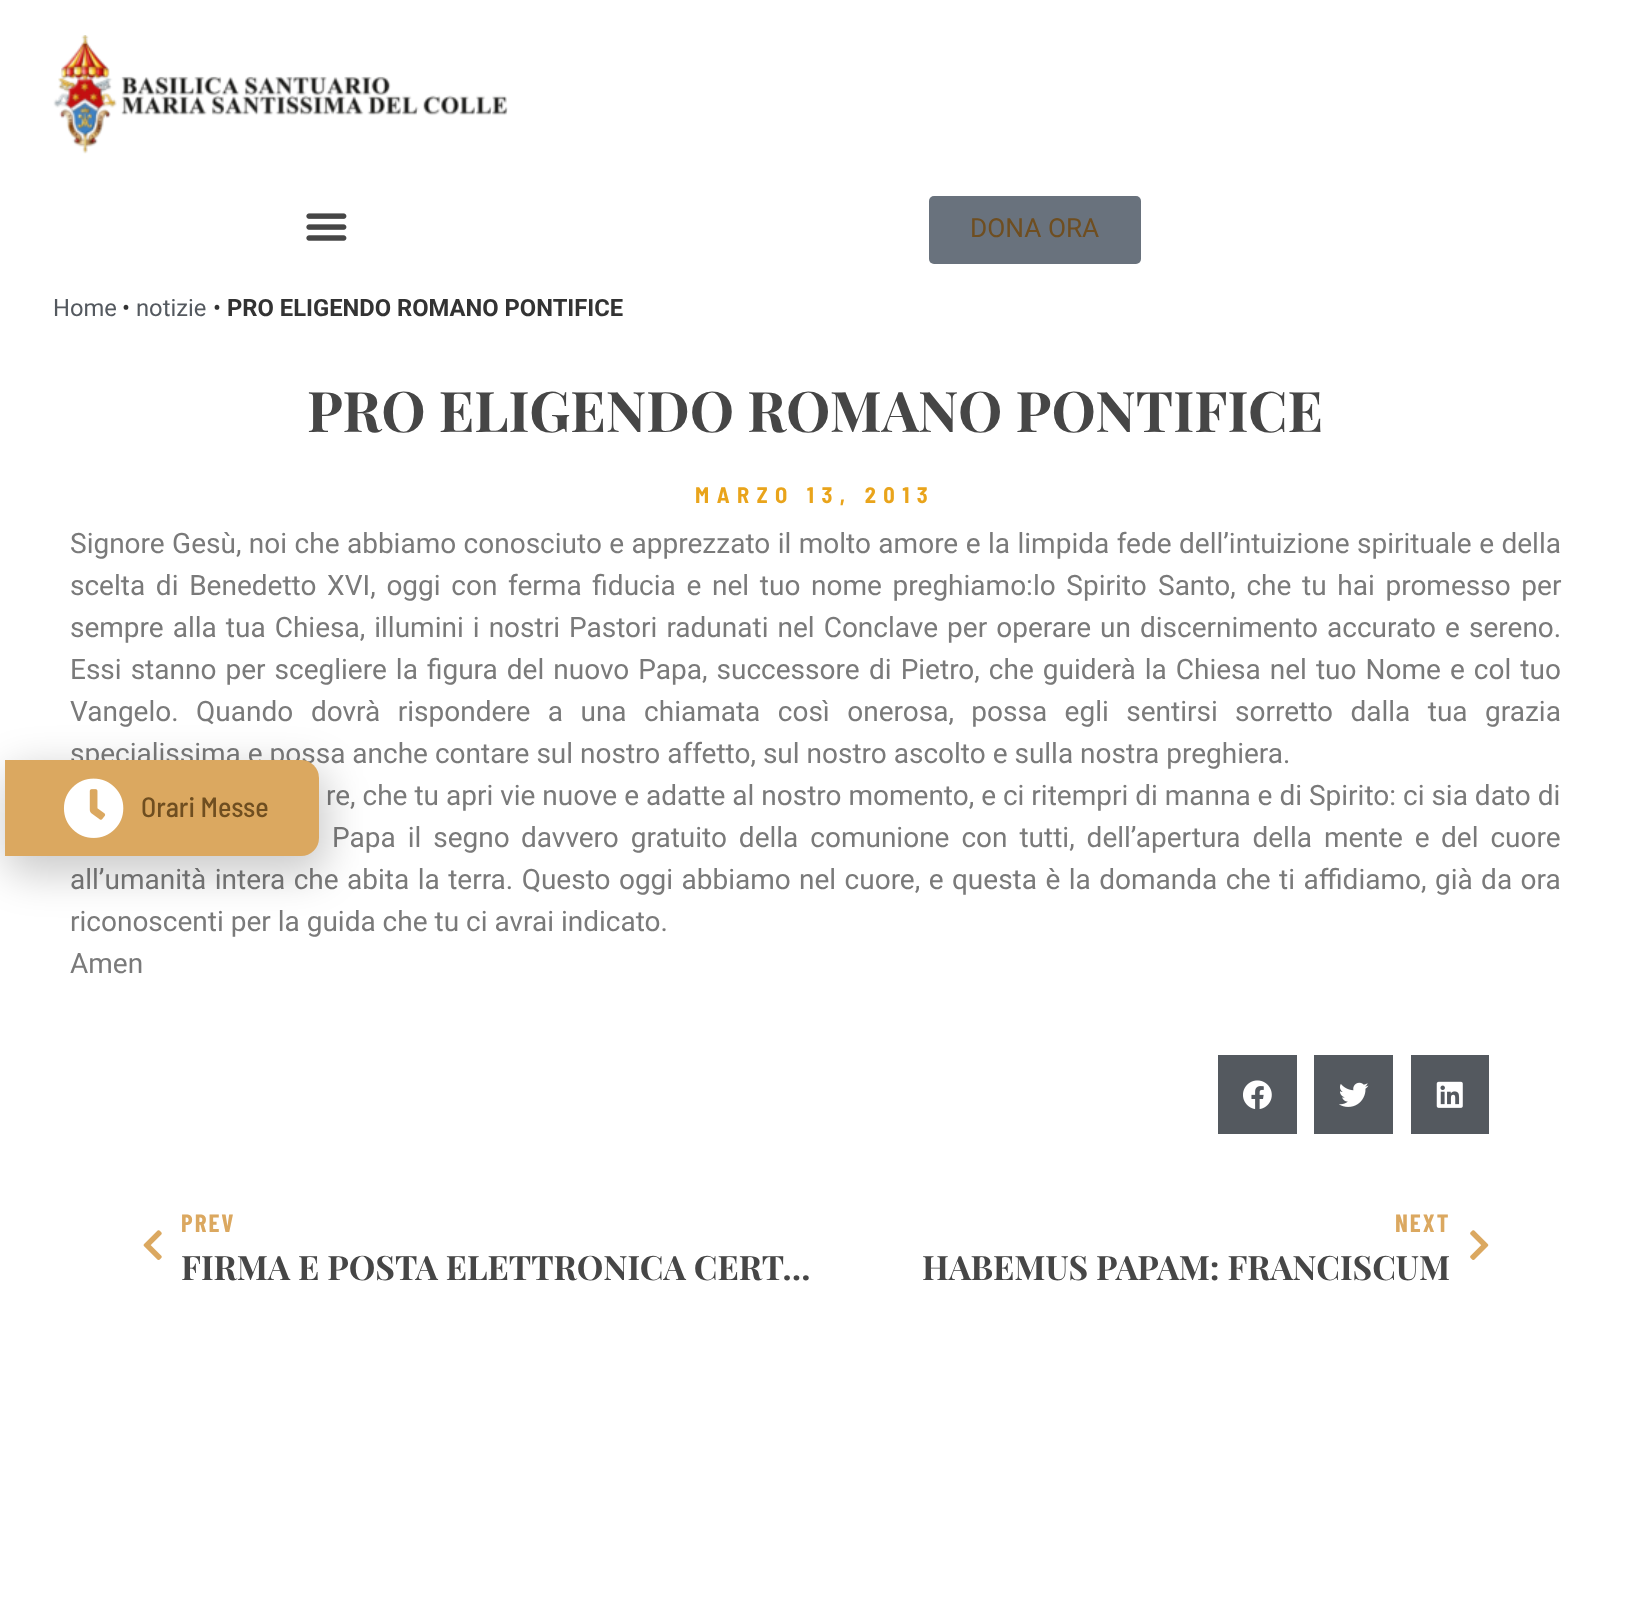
async function draw(canvas) {
	canvas.width = 1631;
	canvas.height = 1613;
	const c = canvas.getContext('2d');
	c.miterLimit = 4;
	c.fontKerning = 'normal';
	async function loadImage(src) {
		const img = new Image();
		img.src = src;
		await img.decode();
		return img;
	}

	c.fillStyle = '#fff';
	c.fillRect(0, 0, 1631, 1613);
	c.drawImage(await loadImage('img1.png'), 53, 35, 455, 119);
	c.drawImage(await loadImage('img2.png'), 306, 213, 41, 28);
	c.fillStyle = '#69727d';
	c.beginPath();
	c.roundRect(929, 196, 212, 68, 5);
	c.fill();
	c.font = '26.25px Roboto';
	c.fillStyle = '#6f4e20';
	c.fillText('DONA ORA', 970, 237);
	c.font = '23.75px Roboto';
	c.fillStyle = '#54595f';
	c.fillText('Home', 53, 316);
	c.fillStyle = '#333';
	c.fillText('•', 122, 316);
	c.fillStyle = '#54595f';
	c.fillText('notizie', 136, 316);
	c.fillStyle = '#333';
	c.fillText('•', 213, 316);
	c.font = 'bold 23.75px Roboto';
	c.fillText('PRO ELIGENDO ROMANO PONTIFICE', 227, 316);
	c.font = 'bold 56px Playfair Display';
	c.fillStyle = '#464646';
	c.fillText('PRO ELIGENDO ROMANO PONTIFICE', 307, 432);
	c.letterSpacing = '7.5px';
	c.font = 'bold 22.4px Barlow Semi Condensed';
	c.fillStyle = '#e9a41b';
	c.fillText('MARZO 13, 2013', 695, 503);
	c.letterSpacing = '0px';
	c.wordSpacing = '0.5px';
	c.font = '28px Roboto';
	c.fillStyle = '#7a7a7a';
	c.fillText('Signore Gesù, noi che abbiamo conosciuto e apprezzato il molto amore e', 70, 553);
	c.fillText('la limpida fede dell’intuizione spirituale e della', 988, 553);
	c.wordSpacing = '3.75px';
	for (const [text, x, y] of [
		['scelta di Benedetto', 70, 595],
		['XVI, oggi con ferma fiducia e nel tuo nome preghiamo:lo Spirito', 327, 595],
		['Santo, che tu hai promesso per', 1158, 595],
	]) {
		c.fillText(text, x, y);
	}
	c.wordSpacing = '2.1px';
	c.fillText('sempre alla tua Chiesa, illumini i nostri', 70, 637);
	c.fillText('Pastori radunati nel Conclave per operare un discernimento accurato e', 569, 637);
	c.wordSpacing = '0px';
	c.fillText('sereno.', 1469, 637);
	c.wordSpacing = '2.1px';
	c.fillText('Essi stanno per scegliere la figura del nuovo Papa, successore', 70, 679);
	c.fillText('di Pietro, che guiderà la Chiesa nel tuo Nome e col tuo', 869, 679);
	c.wordSpacing = '10.5px';
	for (const [text, x, y] of [
		['Vangelo. Quando', 70, 721],
		['dovrà rispondere a una chiamata così onerosa, possa egli sentirsi', 311, 721],
		['sorretto dalla tua grazia', 1235, 721],
	]) {
		c.fillText(text, x, y);
	}
	c.wordSpacing = '0px';
	c.fillText('specialissima e possa anche contare sul nostro affetto, sul nostro ascolto e sulla nostra preghiera.', 70, 763);
	c.fillText('re, che tu apri vie nuove e adatte al nostro momento, e ci ritempri di manna e di Spirito: ci sia dato di', 326, 805);
	c.wordSpacing = '5px';
	for (const [text, x, y] of [
		['Papa il segno', 332, 847],
		['davvero gratuito della comunione con tutti, dell’apertura della mente e', 521, 847],
		['del cuore', 1441, 847],
	]) {
		c.fillText(text, x, y);
	}
	c.wordSpacing = '1.5px';
	c.fillText('all’umanità intera che abita la terra. Questo oggi abbiamo', 70, 889);
	c.fillText('nel cuore, e questa è la domanda che ti affidiamo, già da ora', 799, 889);
	c.wordSpacing = '0px';
	c.fillText('riconoscenti per la guida che tu ci avrai indicato.', 70, 931);
	c.fillText('Amen', 70, 973);
	c.fillStyle = '#54595f';
	c.fillRect(1218, 1055, 79, 79);
	c.drawImage(await loadImage('img3.png'), 1243, 1080, 29, 29);
	c.fillRect(1314, 1055, 79, 79);
	c.drawImage(await loadImage('img4.png'), 1339, 1082, 30, 25);
	c.fillRect(1411, 1055, 78, 79);
	c.drawImage(await loadImage('img5.png'), 1436, 1081, 27, 27);
	c.drawImage(await loadImage('img6.png'), 143, 1230, 19, 30);
	c.letterSpacing = '2px';
	c.font = 'bold 25px Barlow Condensed';
	c.fillStyle = '#dba860';
	c.fillText('PREV', 181, 1232);
	c.letterSpacing = '0px';
	c.font = 'bold 33.6px Playfair Display';
	c.fillStyle = '#464646';
	c.fillText('FIRMA E POSTA ELETTRONICA CERT…', 181, 1280);
	c.letterSpacing = '2px';
	c.font = 'bold 25px Barlow Condensed';
	c.fillStyle = '#dba860';
	c.fillText('NEXT', 1395, 1232);
	c.letterSpacing = '0px';
	c.font = 'bold 33.6px Playfair Display';
	c.fillStyle = '#464646';
	c.fillText('HABEMUS PAPAM: FRANCISCUM', 922, 1280);
	c.drawImage(await loadImage('img7.png'), 1470, 1230, 19, 30);
	c.fillStyle = '#00000033';
	c.filter = 'blur(20px)';
	c.beginPath();
	c.roundRect(4, 768, 323, 107, 23);
	c.fill();
	c.filter = 'none';
	c.fillStyle = '#dba860';
	c.beginPath();
	c.roundRect(5, 760, 314, 96, [0, 18, 18, 0]);
	c.fill();
	c.drawImage(await loadImage('img8.png'), 63, 778, 61, 60);
	c.font = '500 28px Barlow Semi Condensed';
	c.fillStyle = '#6f4e20';
	c.fillText('Orari Messe', 141, 817);
}

draw(document.querySelector('canvas'));
